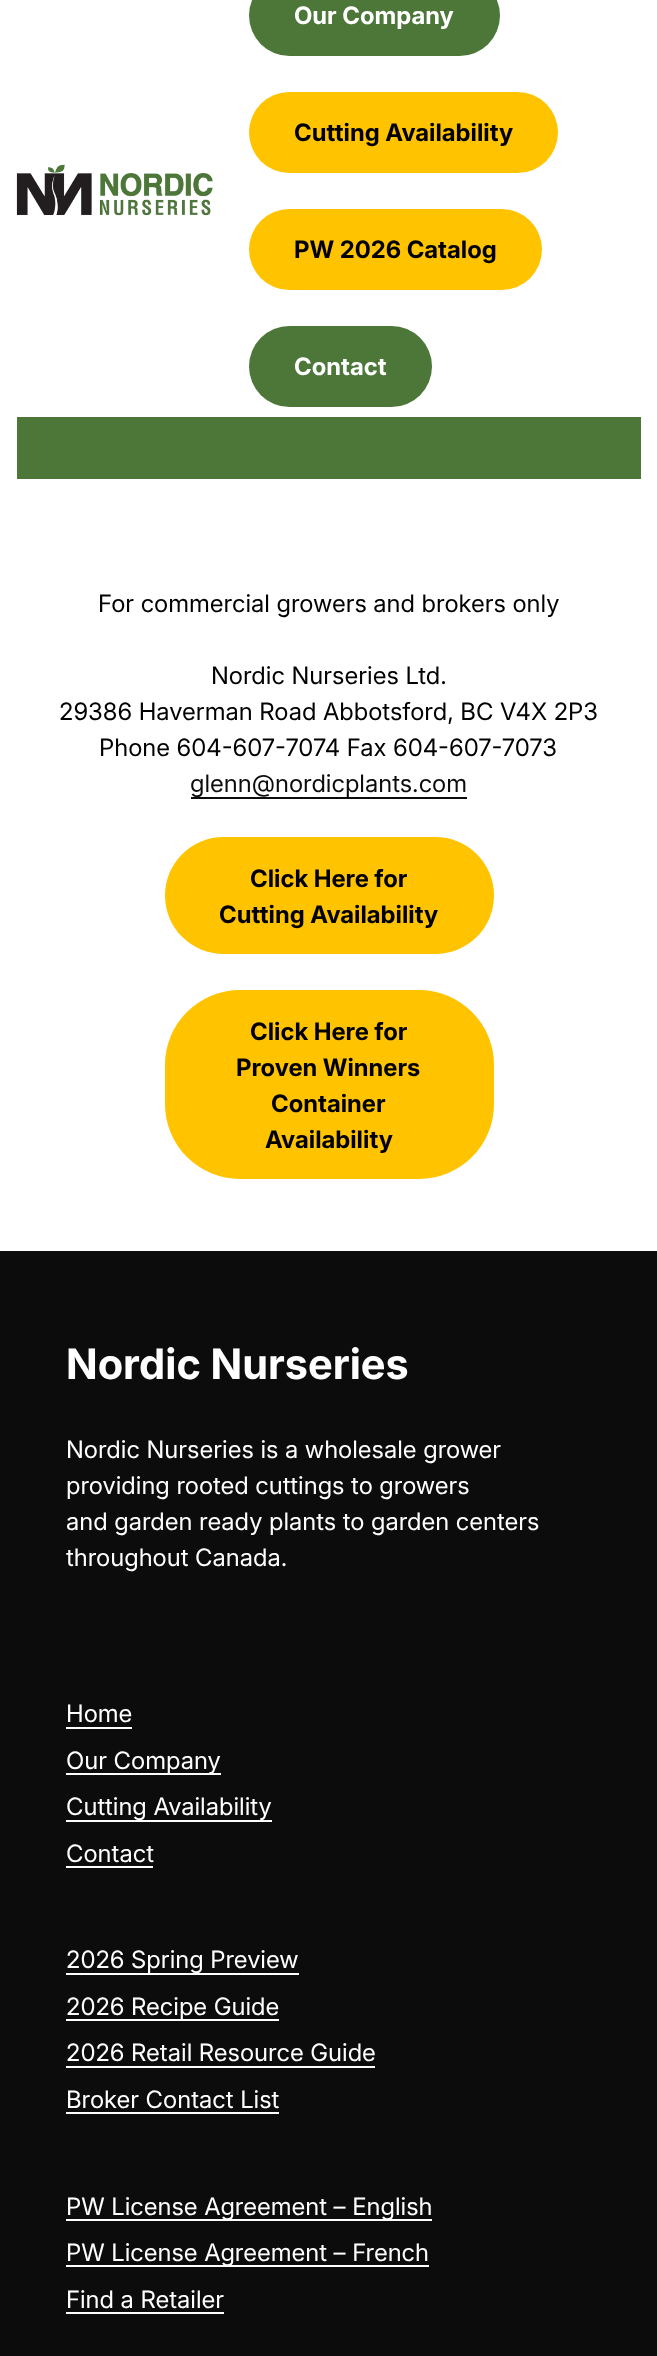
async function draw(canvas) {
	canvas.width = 657;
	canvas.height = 2356;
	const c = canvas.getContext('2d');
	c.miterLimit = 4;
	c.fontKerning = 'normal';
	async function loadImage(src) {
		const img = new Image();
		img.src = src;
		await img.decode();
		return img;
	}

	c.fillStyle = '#fff';
	c.fillRect(0, 0, 657, 2356);
	c.drawImage(await loadImage('img1.png'), 16, 164, 197, 52);
	c.fillStyle = '#4c7739';
	c.beginPath();
	c.roundRect(249, -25, 251, 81, 40.5);
	c.fill();
	c.font = 'bold 24px Inter';
	c.fillStyle = '#fff';
	c.fillText('Our Company', 294, 24);
	c.fillStyle = '#ffc300';
	c.beginPath();
	c.roundRect(249, 92, 309, 81, 40.5);
	c.fill();
	c.fillStyle = '#000';
	c.fillText('Cutting Availability', 294, 141);
	c.fillStyle = '#ffc300';
	c.beginPath();
	c.roundRect(249, 209, 293, 81, 40.5);
	c.fill();
	c.fillStyle = '#000';
	c.fillText('PW 2026 Catalog', 294, 258);
	c.fillStyle = '#4c7739';
	c.beginPath();
	c.roundRect(249, 326, 183, 81, 40.5);
	c.fill();
	c.fillStyle = '#fff';
	c.fillText('Contact', 294, 375);
	c.fillStyle = '#4c7739';
	c.fillRect(17, 417, 624, 62);
	c.font = '24px Inter';
	c.fillStyle = '#000';
	for (const [text, x, y] of [
		['For commercial growers and brokers only', 98, 612],
		['Nordic Nurseries Ltd.', 211, 684],
		['29386 Haverman Road Abbotsford, BC V4X 2P3', 59, 720],
		['Phone 604-607-7074 Fax 604-607-7073', 99, 756],
	]) {
		c.fillText(text, x, y);
	}
	c.fillStyle = '#0d0c0c';
	c.fillRect(191, 797, 276, 2);
	c.fillText('glenn@nordicplants.com', 190, 792);
	c.fillStyle = '#ffc300';
	c.beginPath();
	c.roundRect(165, 837, 329, 117, 58.5);
	c.fill();
	c.font = 'bold 24px Inter';
	c.fillStyle = '#000';
	c.fillText('Click Here for', 250, 887);
	c.fillText('Cutting Availability', 219, 923);
	c.fillStyle = '#ffc300';
	c.beginPath();
	c.roundRect(165, 990, 329, 189, 75);
	c.fill();
	c.fillStyle = '#000';
	for (const [text, x, y] of [
		['Click Here for', 250, 1040],
		['Proven Winners', 236, 1076],
		['Container', 271, 1112],
		['Availability', 265, 1148],
	]) {
		c.fillText(text, x, y);
	}
	c.fillStyle = '#0d0c0c';
	c.fillRect(0, 1251, 657, 1105);
	c.font = 'bold 42px Inter';
	c.fillStyle = '#fff';
	c.fillText('Nordic Nurseries', 66, 1379);
	c.font = '24px Inter';
	for (const [text, x, y] of [
		['Nordic Nurseries is a wholesale grower', 66, 1458],
		['providing rooted cuttings to growers', 66, 1494],
		['and garden ready plants to garden centers', 66, 1530],
		['throughout Canada.', 66, 1566],
		['Home', 66, 1722],
	]) {
		c.fillText(text, x, y);
	}
	c.fillRect(66, 1727, 66, 2);
	c.fillRect(66, 1773, 155, 2);
	c.fillText('Our Company', 66, 1769);
	c.fillRect(66, 1820, 206, 2);
	c.fillText('Cutting Availability', 66, 1815);
	c.fillText('Contact', 66, 1862);
	c.fillRect(66, 1866, 87, 2);
	c.fillRect(66, 1973, 233, 2);
	c.fillText('2026 Spring Preview', 66, 1968);
	c.fillRect(66, 2019, 213, 2);
	c.fillText('2026 Recipe Guide', 66, 2015);
	c.fillText('2026 Retail Resource Guide', 66, 2061);
	c.fillRect(66, 2066, 309, 2);
	c.fillText('Broker Contact List', 66, 2108);
	c.fillRect(66, 2112, 213, 2);
	c.fillRect(66, 2219, 366, 2);
	c.fillText('PW License Agreement – English', 66, 2215);
	c.fillRect(66, 2265, 363, 2);
	c.fillText('PW License Agreement – French', 66, 2261);
	c.fillText('Find a Retailer', 66, 2308);
	c.fillRect(66, 2312, 158, 2);
}

draw(document.querySelector('canvas'));
